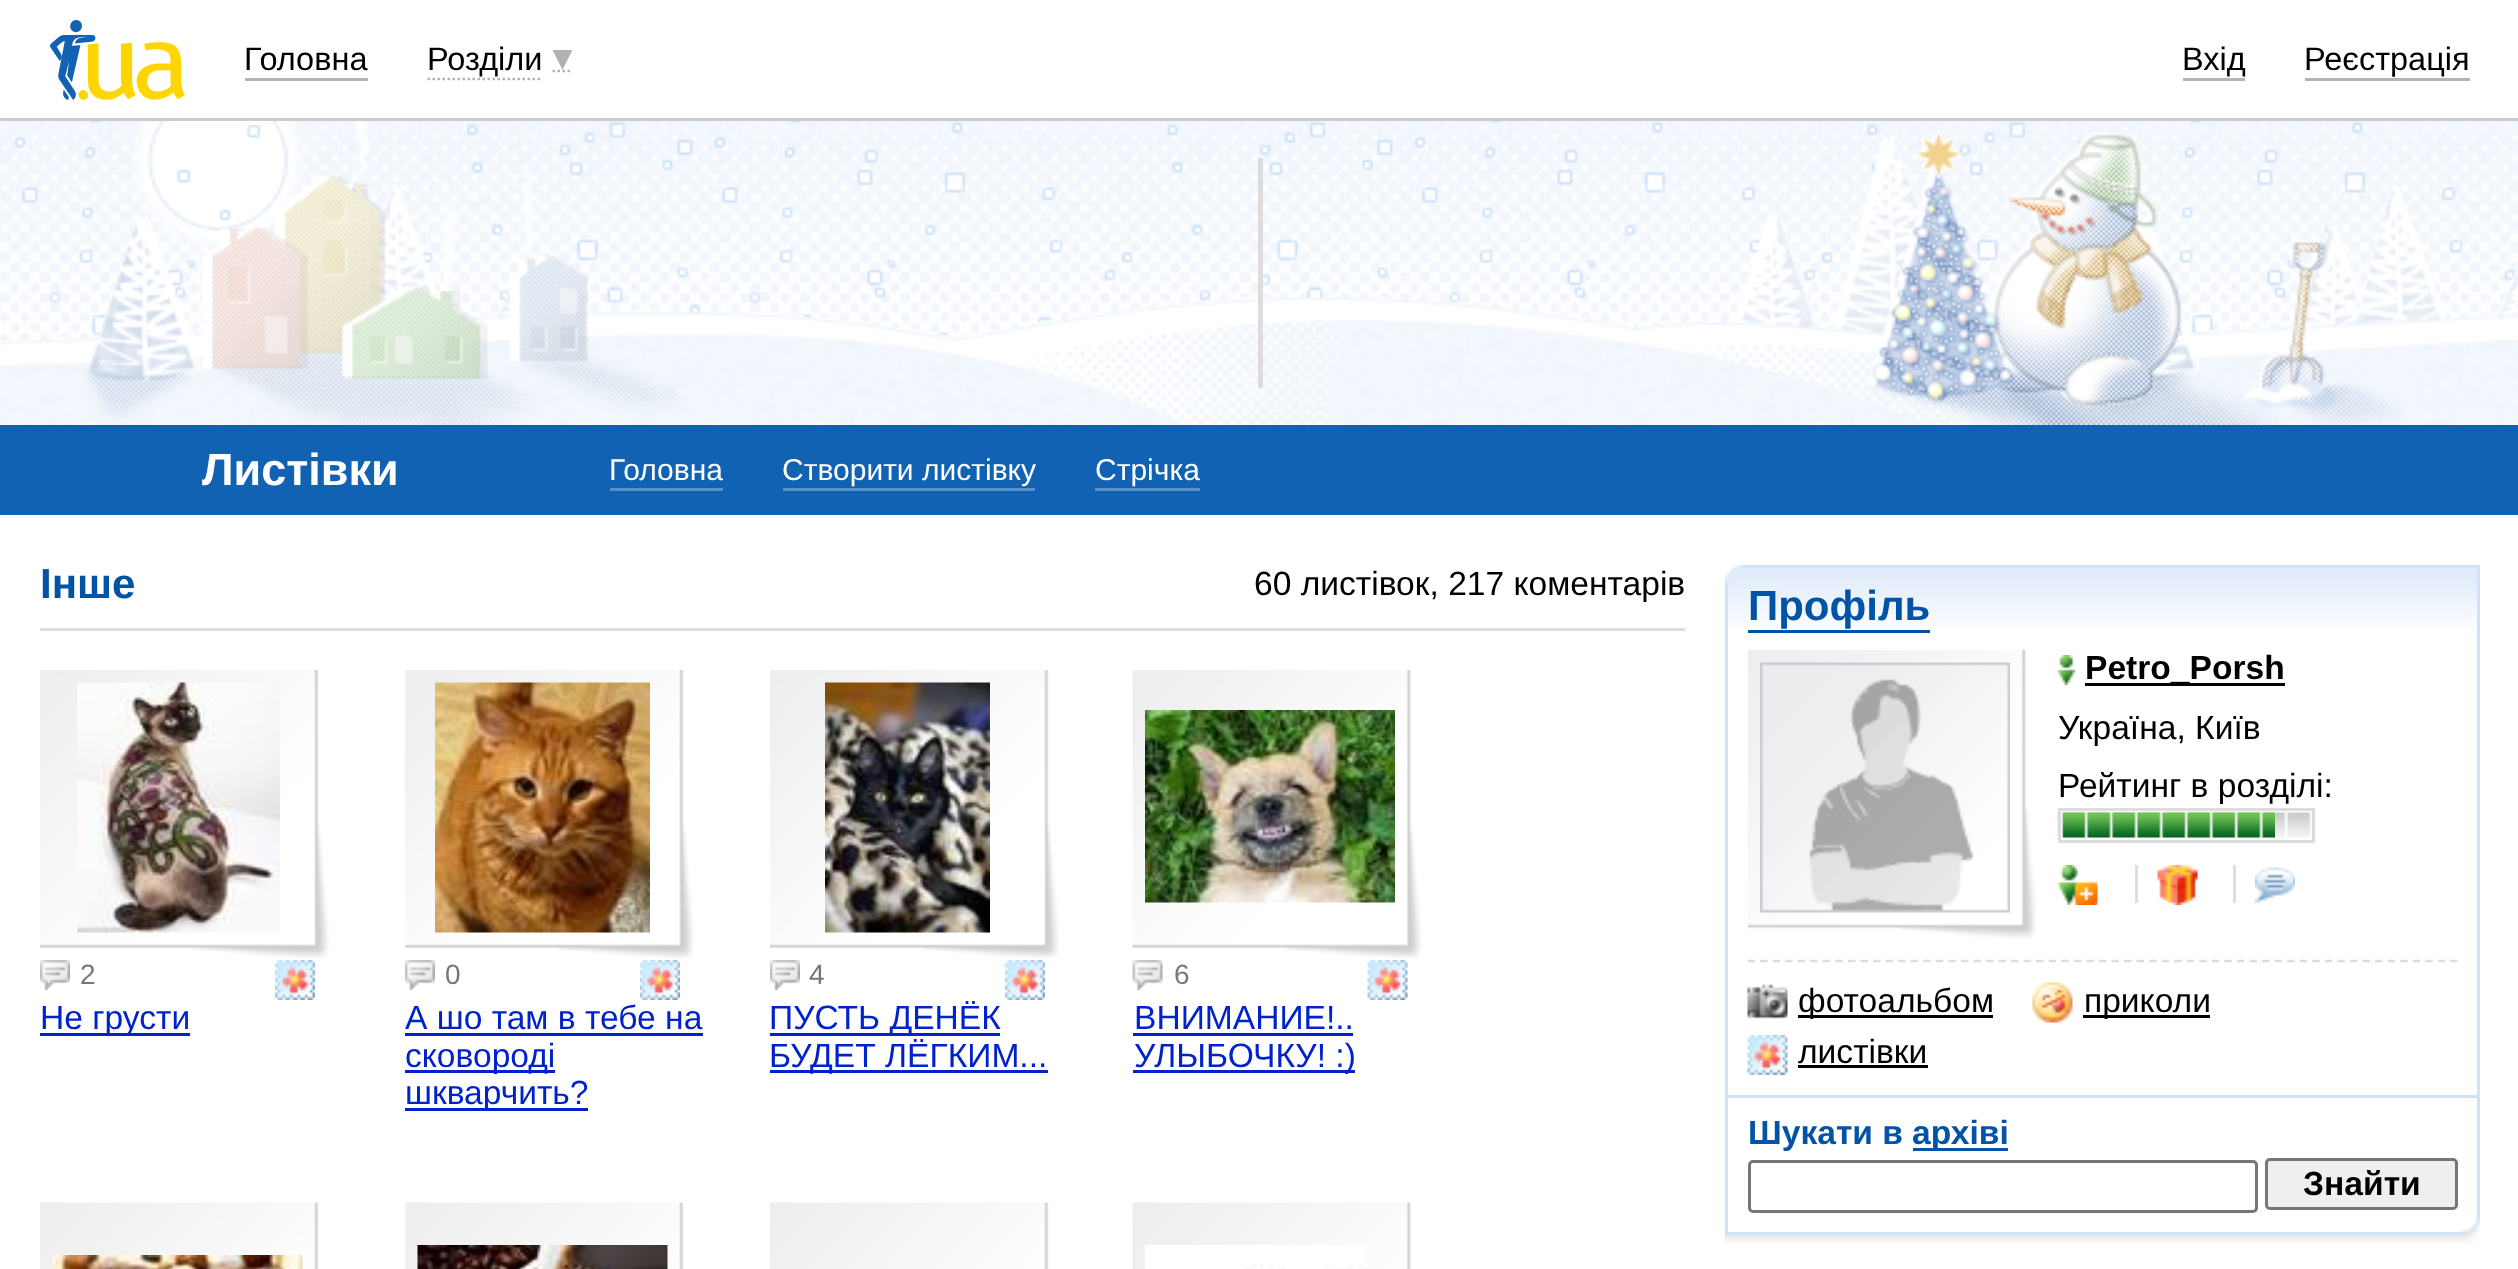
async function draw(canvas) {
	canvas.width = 2518;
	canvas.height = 1269;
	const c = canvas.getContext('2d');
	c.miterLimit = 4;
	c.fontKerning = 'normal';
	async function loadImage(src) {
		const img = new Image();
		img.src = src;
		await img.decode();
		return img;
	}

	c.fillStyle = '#fff';
	c.fillRect(0, 0, 2518, 1269);
	c.fillStyle = '#ccc';
	c.fillRect(0, 118, 2518, 3);
	c.drawImage(await loadImage('img1.png'), 50, 20, 135, 80);
	c.font = '32.5px Liberation Sans';
	c.fillStyle = '#000';
	c.fillText('Головна', 244, 70);
	c.fillStyle = '#b3b3b3';
	c.fillRect(245, 78, 123, 3);
	c.beginPath();
	c.moveTo(427.5, 79);
	c.lineTo(542.5, 79);
	c.strokeStyle = '#b3b3b3';
	c.lineWidth = 2.5;
	c.setLineDash([2.5, 2.5]);
	c.stroke();
	c.beginPath();
	c.moveTo(552.5, 71);
	c.lineTo(572.5, 71);
	c.stroke();
	c.fillStyle = '#000';
	c.fillText('Розділи', 427, 70);
	c.fillStyle = '#0000004d';
	c.beginPath();
	c.moveTo(552.5, 50);
	c.lineTo(572.5, 50);
	c.lineTo(562.5, 70);
	c.closePath();
	c.fill();
	c.fillStyle = '#000';
	c.fillText('Вхід', 2182, 70);
	c.fillStyle = '#b3b3b3';
	c.fillRect(2183, 78, 62, 3);
	c.fillStyle = '#000';
	c.fillText('Реєстрація', 2304, 70);
	c.fillStyle = '#b3b3b3';
	c.fillRect(2305, 78, 165, 3);
	c.drawImage(await loadImage('img2.png'), 0, 121, 2518, 304);
	c.fillStyle = '#ddd';
	c.fillRect(1258, 158, 5, 230);
	c.fillStyle = '#1162b3';
	c.fillRect(0, 425, 2518, 90);
	c.font = 'bold 45px Liberation Sans';
	c.fillStyle = '#fff';
	c.fillText('Листівки', 202, 485);
	c.font = '30px Liberation Sans';
	c.fillText('Головна', 609, 480);
	c.fillStyle = '#5891ca';
	c.fillRect(610, 488, 113, 3);
	c.fillStyle = '#fff';
	c.fillText('Створити листівку', 782, 480);
	c.fillStyle = '#5891ca';
	c.fillRect(783, 488, 252, 3);
	c.fillStyle = '#fff';
	c.fillText('Стрічка', 1095, 480);
	c.fillStyle = '#5891ca';
	c.fillRect(1095, 488, 105, 3);
	c.font = 'bold 42px Liberation Sans';
	c.fillStyle = '#0053a5';
	c.fillText('Інше', 40, 598);
	c.font = '33.6px Liberation Sans';
	c.fillStyle = '#000';
	c.fillText('60 листівок, 217 коментарів', 1254, 595);
	c.fillStyle = '#ddd';
	c.fillRect(40, 628, 1645, 3);
	c.drawImage(await loadImage('img3.png'), 40, 670, 289, 289);
	c.drawImage(await loadImage('img4.png'), 77, 682, 203, 251);
	c.drawImage(await loadImage('img5.png'), 40, 960, 30, 30);
	c.font = '28px Liberation Sans';
	c.fillStyle = '#777';
	c.fillText('2', 80, 984);
	c.drawImage(await loadImage('img6.png'), 275, 960, 40, 40);
	c.fillStyle = '#02c';
	c.fillRect(40, 1033, 150, 3);
	c.font = '33.6px Liberation Sans';
	c.fillText('Не грусти', 40, 1029);
	c.drawImage(await loadImage('img7.png'), 405, 670, 289, 289);
	c.drawImage(await loadImage('img8.png'), 435, 682, 215, 251);
	c.drawImage(await loadImage('img5.png'), 405, 960, 30, 30);
	c.font = '28px Liberation Sans';
	c.fillStyle = '#777';
	c.fillText('0', 445, 984);
	c.drawImage(await loadImage('img9.png'), 640, 960, 40, 40);
	c.font = '33.6px Liberation Sans';
	c.fillStyle = '#02c';
	c.fillText('А шо там в тебе на', 405, 1029);
	c.fillRect(405, 1033, 298, 3);
	c.fillRect(405, 1070, 150, 3);
	c.fillText('сковороді', 405, 1067);
	c.fillRect(405, 1108, 183, 3);
	c.fillText('шкварчить?', 405, 1104);
	c.drawImage(await loadImage('img10.png'), 770, 670, 289, 289);
	c.drawImage(await loadImage('img11.png'), 825, 682, 165, 251);
	c.drawImage(await loadImage('img5.png'), 770, 960, 30, 30);
	c.font = '28px Liberation Sans';
	c.fillStyle = '#777';
	c.fillText('4', 809, 984);
	c.drawImage(await loadImage('img12.png'), 1005, 960, 40, 40);
	c.fillStyle = '#02c';
	c.fillRect(770, 1033, 230, 3);
	c.font = '33.6px Liberation Sans';
	c.fillText('ПУСТЬ ДЕНЁК', 769, 1029);
	c.fillRect(770, 1070, 278, 3);
	c.fillText('БУДЕТ ЛЁГКИМ...', 769, 1067);
	c.drawImage(await loadImage('img13.png'), 1132, 670, 289, 289);
	c.drawImage(await loadImage('img14.png'), 1145, 710, 250, 193);
	c.drawImage(await loadImage('img15.png'), 1132, 960, 31, 30);
	c.font = '28px Liberation Sans';
	c.fillStyle = '#777';
	c.fillText('6', 1174, 984);
	c.drawImage(await loadImage('img16.png'), 1367, 960, 41, 40);
	c.font = '33.6px Liberation Sans';
	c.fillStyle = '#02c';
	c.fillText('ВНИМАНИЕ!..', 1134, 1029);
	c.fillRect(1133, 1033, 220, 3);
	c.fillRect(1133, 1070, 222, 3);
	c.fillText('УЛЫБОЧКУ! :)', 1134, 1067);
	c.drawImage(await loadImage('img17.png'), 40, 1202, 279, 67);
	c.drawImage(await loadImage('img18.png'), 52, 1255, 251, 14);
	c.drawImage(await loadImage('img19.png'), 405, 1202, 279, 67);
	c.drawImage(await loadImage('img20.png'), 417, 1245, 251, 24);
	c.drawImage(await loadImage('img17.png'), 770, 1202, 279, 67);
	c.drawImage(await loadImage('img21.png'), 1132, 1202, 279, 67);
	c.drawImage(await loadImage('img22.png'), 1145, 1245, 220, 24);
	c.drawImage(await loadImage('img23.png'), 1725, 1235, 735, 8);
	c.drawImage(await loadImage('img25.png'), 1728, 568, 749, 61);
	c.strokeStyle = '#cee3f7';
	c.lineWidth = 3;
	c.setLineDash([]);
	c.strokeRect(1726.5, 566.5, 752, 667);
	c.drawImage(await loadImage('img24.png'), 1725, 565, 18, 20);
	c.font = 'bold 42px Liberation Sans';
	c.fillStyle = '#0053a5';
	c.fillText('Профіль', 1748, 620);
	c.fillRect(1748, 630, 182, 3);
	c.drawImage(await loadImage('img26.png'), 1747, 650, 289, 289);
	c.drawImage(await loadImage('img27.png'), 1760, 662, 250, 251);
	c.drawImage(await loadImage('img28.png'), 2057, 655, 19, 30);
	c.fillStyle = '#000';
	c.fillRect(2085, 683, 200, 3);
	c.font = 'bold 33.6px Liberation Sans';
	c.fillText('Petro_Porsh', 2085, 679);
	c.font = '33.6px Liberation Sans';
	c.fillText('Україна, Київ', 2058, 739);
	c.fillText('Рейтинг в розділі:', 2058, 797);
	c.drawImage(await loadImage('img29.png'), 2057, 812, 255, 26);
	c.strokeStyle = '#ddd';
	c.strokeRect(2059.5, 809.5, 254, 32);
	c.drawImage(await loadImage('img30.png'), 2062, 812, 213, 26);
	c.drawImage(await loadImage('img31.png'), 2057, 865, 41, 40);
	c.fillStyle = '#ddd';
	c.fillRect(2135, 865, 3, 38);
	c.drawImage(await loadImage('img32.png'), 2157, 865, 41, 40);
	c.fillRect(2233, 865, 3, 38);
	c.drawImage(await loadImage('img33.png'), 2255, 867, 40, 37);
	c.beginPath();
	c.moveTo(1747.5, 961);
	c.lineTo(2457.5, 961);
	c.lineWidth = 2.5;
	c.setLineDash([7.5, 5.05]);
	c.stroke();
	c.drawImage(await loadImage('img34.png'), 1747, 984, 41, 35);
	c.fillStyle = '#000';
	c.fillRect(1798, 1015, 195, 3);
	c.fillText('фотоальбом', 1798, 1012);
	c.drawImage(await loadImage('img35.png'), 2032, 982, 41, 41);
	c.fillRect(2083, 1015, 127, 3);
	c.fillText('приколи', 2084, 1012);
	c.drawImage(await loadImage('img36.png'), 1747, 1035, 41, 40);
	c.fillText('листівки', 1798, 1063);
	c.fillRect(1798, 1065, 130, 3);
	c.fillStyle = '#cee3f7';
	c.fillRect(1728, 1095, 750, 3);
	c.font = 'bold 33.6px Liberation Sans';
	c.fillStyle = '#0053a5';
	c.fillText('Шукати в', 1748, 1144);
	c.fillRect(1913, 1148, 95, 3);
	c.fillText('архіві', 1912, 1144);
	c.beginPath();
	c.roundRect(1749.5, 1161.5, 507, 50, 3.5);
	c.strokeStyle = '#767676';
	c.lineWidth = 3;
	c.setLineDash([]);
	c.stroke();
	c.fillStyle = '#efefef';
	c.beginPath();
	c.roundRect(2266.5, 1159.5, 190, 49, 3.5);
	c.fill();
	c.stroke();
	c.fillStyle = '#000';
	c.fillText('Знайти', 2303, 1195);
	c.drawImage(await loadImage('img37.png'), 2460, 1215, 20, 29);
}

draw(document.querySelector('canvas'));
